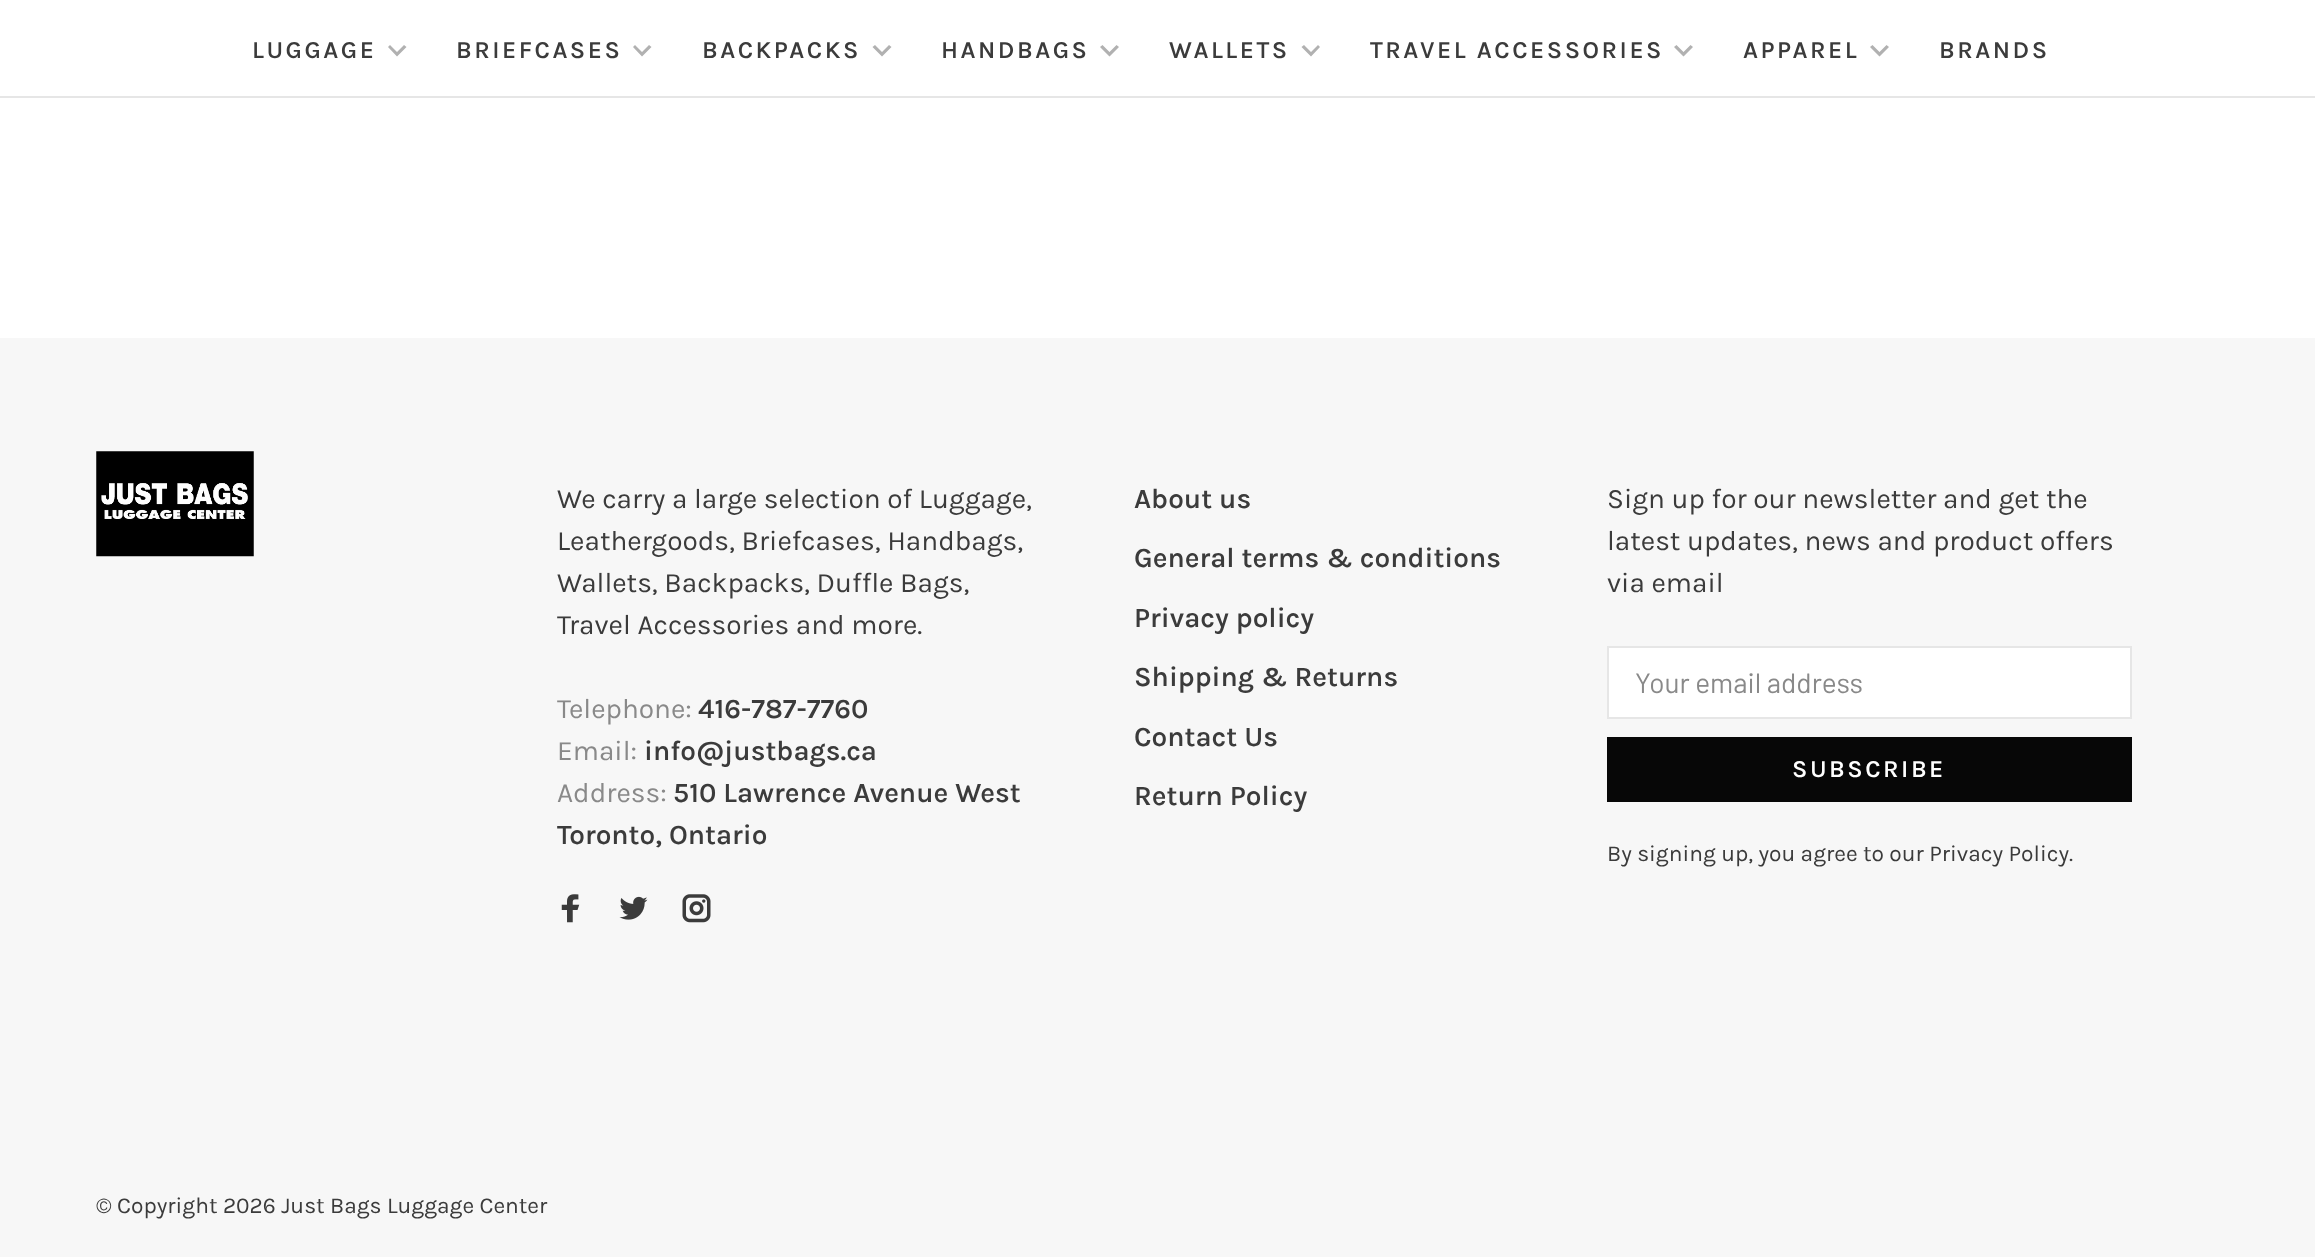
async function draw(canvas) {
	canvas.width = 2315;
	canvas.height = 1257;
	const c = canvas.getContext('2d');
	c.miterLimit = 4;
	c.fontKerning = 'normal';
	async function loadImage(src) {
		const img = new Image();
		img.src = src;
		await img.decode();
		return img;
	}

	c.fillStyle = '#fff';
	c.fillRect(0, 0, 2315, 1257);
	c.fillStyle = '#e6e6e6';
	c.fillRect(0, 96, 2315, 2);
	c.letterSpacing = '2.5px';
	c.font = '600 24.5px Karla';
	c.fillStyle = '#3b3b3b';
	c.fillText('LUGGAGE', 252, 58);
	c.fillStyle = '#b1b1b1';
	c.beginPath();
	c.moveTo(397, 56.5);
	c.lineTo(388, 47);
	c.lineTo(390, 45);
	c.lineTo(397, 52);
	c.lineTo(404, 45);
	c.lineTo(406.5, 47);
	c.closePath();
	c.fill();
	c.fillStyle = '#3b3b3b';
	c.fillText('BRIEFCASES', 456, 58);
	c.fillStyle = '#b1b1b1';
	c.beginPath();
	c.moveTo(642, 56.5);
	c.lineTo(633, 47);
	c.lineTo(635, 45);
	c.lineTo(642, 52);
	c.lineTo(649, 45);
	c.lineTo(651.5, 47);
	c.closePath();
	c.fill();
	c.fillStyle = '#3b3b3b';
	c.fillText('BACKPACKS', 702, 58);
	c.fillStyle = '#b1b1b1';
	c.beginPath();
	c.moveTo(882, 56.5);
	c.lineTo(872.5, 47);
	c.lineTo(875, 45);
	c.lineTo(882, 52);
	c.lineTo(889, 45);
	c.lineTo(891.5, 47);
	c.closePath();
	c.fill();
	c.fillStyle = '#3b3b3b';
	c.fillText('HANDBAGS', 941, 58);
	c.fillStyle = '#b1b1b1';
	c.beginPath();
	c.moveTo(1109.5, 56.5);
	c.lineTo(1100, 47);
	c.lineTo(1102.5, 45);
	c.lineTo(1109.5, 52);
	c.lineTo(1116.5, 45);
	c.lineTo(1119, 47);
	c.closePath();
	c.fill();
	c.fillStyle = '#3b3b3b';
	c.fillText('WALLETS', 1169, 58);
	c.fillStyle = '#b1b1b1';
	c.beginPath();
	c.moveTo(1311, 56.5);
	c.lineTo(1301.5, 47);
	c.lineTo(1304, 45);
	c.lineTo(1311, 52);
	c.lineTo(1318, 45);
	c.lineTo(1320, 47);
	c.closePath();
	c.fill();
	c.fillStyle = '#3b3b3b';
	c.fillText('TRAVEL ACCESSORIES', 1370, 58);
	c.fillStyle = '#b1b1b1';
	c.beginPath();
	c.moveTo(1683.5, 56.5);
	c.lineTo(1674, 47);
	c.lineTo(1676.5, 45);
	c.lineTo(1683.5, 52);
	c.lineTo(1690.5, 45);
	c.lineTo(1693, 47);
	c.closePath();
	c.fill();
	c.fillStyle = '#3b3b3b';
	c.fillText('APPAREL', 1743, 58);
	c.fillStyle = '#b1b1b1';
	c.beginPath();
	c.moveTo(1879.5, 56.5);
	c.lineTo(1870, 47);
	c.lineTo(1872.5, 45);
	c.lineTo(1879.5, 52);
	c.lineTo(1886.5, 45);
	c.lineTo(1889, 47);
	c.closePath();
	c.fill();
	c.fillStyle = '#3b3b3b';
	c.fillText('BRANDS', 1939, 58);
	c.fillStyle = '#f7f7f7';
	c.fillRect(0, 338, 2315, 919);
	c.drawImage(await loadImage('img1.png'), 96, 451, 158, 106);
	c.letterSpacing = '0px';
	c.font = '28px Karla';
	c.fillStyle = '#3b3b3b';
	for (const [text, x, y] of [
		['We carry a large selection of Luggage,', 557, 508],
		['Leathergoods, Briefcases, Handbags,', 557, 550],
		['Wallets, Backpacks, Duffle Bags,', 557, 592],
		['Travel Accessories and more.', 557, 634],
	]) {
		c.fillText(text, x, y);
	}
	c.fillStyle = '#898989';
	c.fillText('Telephone:', 557, 718);
	c.font = '600 28px Karla';
	c.fillStyle = '#3b3b3b';
	c.fillText('416-787-7760', 698, 718);
	c.font = '28px Karla';
	c.fillStyle = '#898989';
	c.fillText('Email:', 557, 760);
	c.font = '600 28px Karla';
	c.fillStyle = '#3b3b3b';
	c.fillText('info@justbags.ca', 644, 760);
	c.font = '28px Karla';
	c.fillStyle = '#898989';
	c.fillText('Address:', 557, 802);
	c.font = '600 28px Karla';
	c.fillStyle = '#3b3b3b';
	c.fillText('510 Lawrence Avenue West', 673, 802);
	c.fillText('Toronto, Ontario', 557, 844);
	c.drawImage(await loadImage('img2.png'), 561, 894, 19, 29);
	c.drawImage(await loadImage('img3.png'), 619, 896, 29, 24);
	c.drawImage(await loadImage('img4.png'), 682, 894, 29, 29);
	for (const [text, x, y] of [
		['About us', 1134, 508],
		['General terms & conditions', 1134, 567],
		['Privacy policy', 1134, 627],
		['Shipping & Returns', 1134, 686],
		['Contact Us', 1134, 746],
		['Return Policy', 1134, 805],
	]) {
		c.fillText(text, x, y);
	}
	c.font = '28px Karla';
	for (const [text, x, y] of [
		['Sign up for our newsletter and get the', 1607, 508],
		['latest updates, news and product offers', 1607, 550],
		['via email', 1607, 592],
	]) {
		c.fillText(text, x, y);
	}
	c.fillStyle = '#fff';
	c.beginPath();
	c.rect(1608, 647, 523, 71);
	c.fill();
	c.strokeStyle = '#e6e6e6';
	c.lineWidth = 2;
	c.stroke();
	c.font = '28px Barlow';
	c.fillStyle = '#898989';
	c.fillText('Your email address', 1635, 693);
	c.fillStyle = '#070707';
	c.fillRect(1607, 737, 525, 65);
	c.letterSpacing = '2.5px';
	c.font = '600 24.5px Karla';
	c.fillStyle = '#fff';
	c.fillText('SUBSCRIBE', 1792, 777);
	c.letterSpacing = '0px';
	c.font = '22.75px Karla';
	c.fillStyle = '#3b3b3b';
	c.fillText('By signing up, you agree to our Privacy Policy.', 1607, 861);
	c.fillText('© Copyright 2026 Just Bags Luggage Center', 96, 1213);
}

draw(document.querySelector('canvas'));
